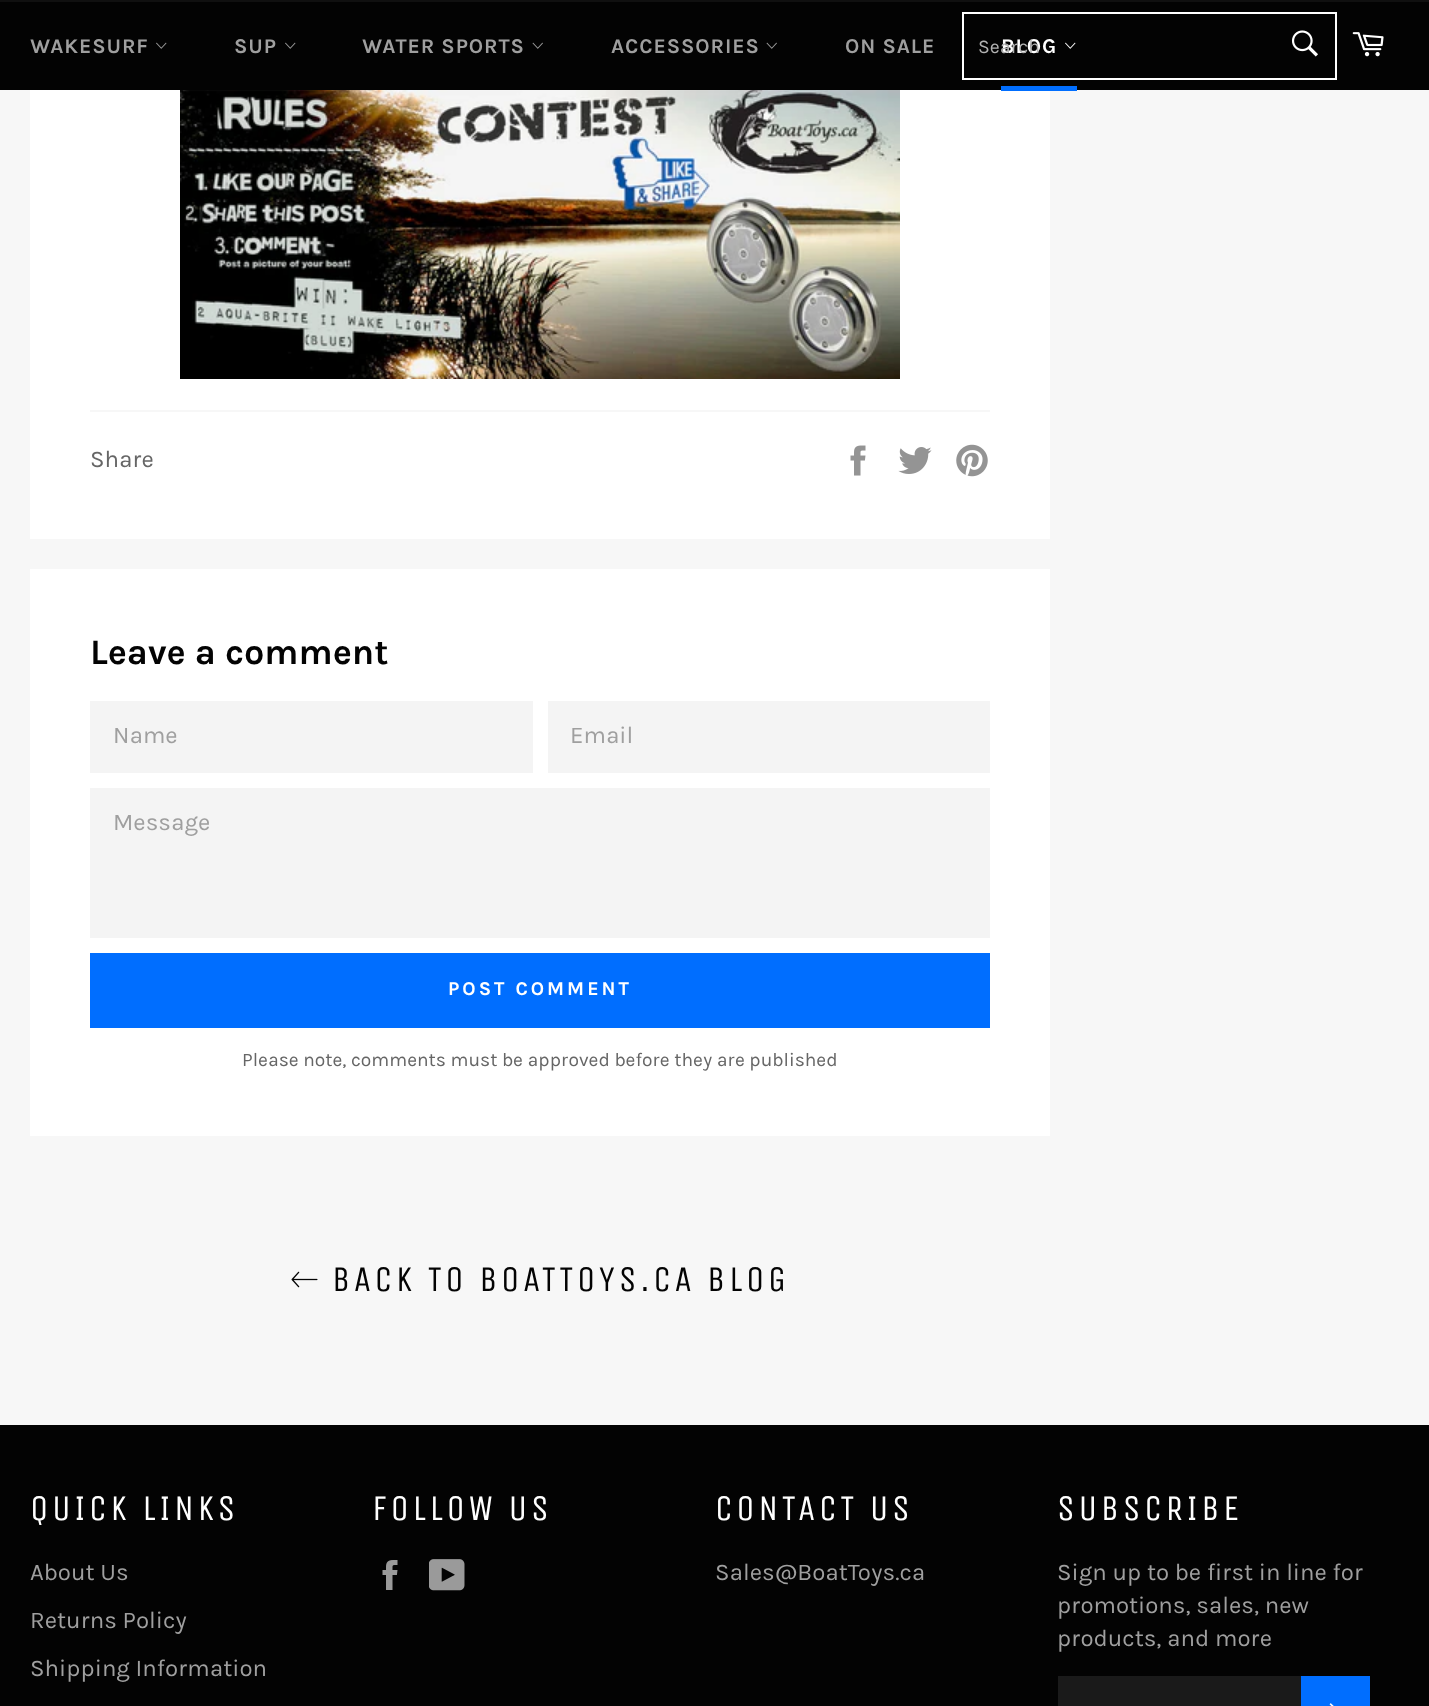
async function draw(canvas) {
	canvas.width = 1429;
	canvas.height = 1706;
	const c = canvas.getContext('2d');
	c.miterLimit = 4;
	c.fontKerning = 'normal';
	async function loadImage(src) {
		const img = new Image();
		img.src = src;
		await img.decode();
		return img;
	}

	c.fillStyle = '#f7f7f7';
	c.fillRect(0, 0, 1429, 1706);
	c.fillStyle = '#030303';
	c.fillRect(0, 2, 1429, 88);
	c.fillStyle = '#101010';
	c.fillRect(0, 0, 1429, 2);
	c.letterSpacing = '0.9px';
	c.font = 'bold 21px Karla';
	c.fillStyle = '#9f9f9f';
	c.fillText('WAKESURF', 30, 53);
	c.drawImage(await loadImage('img1.png'), 156, 42, 11, 7);
	c.fillText('SUP', 234, 53);
	c.drawImage(await loadImage('img1.png'), 285, 42, 11, 7);
	c.fillText('WATER SPORTS', 362, 53);
	c.drawImage(await loadImage('img2.png'), 532, 42, 11, 7);
	c.fillText('ACCESSORIES', 611, 53);
	c.drawImage(await loadImage('img2.png'), 766, 42, 11, 7);
	c.fillText('ON SALE', 845, 53);
	c.fillStyle = '#fff';
	c.fillText('BLOG', 1001, 53);
	c.drawImage(await loadImage('img3.png'), 1065, 42, 11, 7);
	c.fillRect(30, 90, 1020, 449);
	c.fillStyle = '#006eff';
	c.fillRect(1001, 86, 76, 5);
	c.strokeStyle = '#fff';
	c.lineWidth = 2;
	c.strokeRect(963, 13, 373, 66);
	c.letterSpacing = '0px';
	c.font = '19.5px Karla';
	c.fillStyle = '#b2b2b2';
	c.fillText('Search', 978, 53);
	c.drawImage(await loadImage('img4.png'), 1291, 30, 27, 27);
	c.drawImage(await loadImage('img5.png'), 1352, 32, 32, 25);
	c.drawImage(await loadImage('img6.png'), 180, 90, 720, 289);
	c.fillStyle = '#f7f7f7';
	c.fillRect(90, 410, 900, 2);
	c.font = '24px Karla';
	c.fillStyle = '#666';
	c.fillText('Share', 90, 467);
	c.drawImage(await loadImage('img7.png'), 850, 445, 16, 31);
	c.drawImage(await loadImage('img8.png'), 898, 447, 34, 27);
	c.drawImage(await loadImage('img9.png'), 956, 444, 32, 33);
	c.fillStyle = '#fff';
	c.fillRect(30, 569, 1020, 567);
	c.font = 'bold 36px Karla';
	c.fillStyle = '#030303';
	c.fillText('Leave a comment', 90, 664);
	c.fillStyle = '#f4f4f4';
	c.fillRect(90, 701, 443, 72);
	c.font = '24px Karla';
	c.fillStyle = '#9f9f9f';
	c.fillText('Name', 113, 743);
	c.fillStyle = '#f4f4f4';
	c.fillRect(548, 701, 442, 72);
	c.fillStyle = '#9f9f9f';
	c.fillText('Email', 570, 743);
	c.fillStyle = '#f4f4f4';
	c.fillRect(90, 788, 900, 150);
	c.fillStyle = '#9f9f9f';
	c.fillText('Message', 113, 830);
	c.fillStyle = '#006eff';
	c.fillRect(90, 953, 900, 75);
	c.letterSpacing = '3px';
	c.font = 'bold 19.5px Karla';
	c.fillStyle = '#fff';
	c.fillText('POST COMMENT', 448, 995);
	c.letterSpacing = '0px';
	c.font = '19.2px Karla';
	c.fillStyle = '#666';
	c.fillText('Please note, comments must be approved before they are published', 242, 1066);
	c.drawImage(await loadImage('img10.png'), 291, 1271, 27, 17);
	c.letterSpacing = '3.6px';
	c.font = '36px Unica One';
	c.fillStyle = '#030303';
	c.fillText('BACK TO BOATTOYS.CA BLOG', 332, 1291);
	c.fillRect(0, 1425, 1429, 281);
	c.fillStyle = '#fff';
	c.fillText('QUICK LINKS', 30, 1520);
	c.letterSpacing = '0px';
	c.font = '24px Karla';
	c.fillStyle = '#9f9f9f';
	for (const [text, x, y] of [
		['About Us', 30, 1580],
		['Returns Policy', 30, 1628],
		['Shipping Information', 30, 1676],
	]) {
		c.fillText(text, x, y);
	}
	c.letterSpacing = '3.6px';
	c.font = '36px Unica One';
	c.fillStyle = '#fff';
	c.fillText('FOLLOW US', 372, 1520);
	c.drawImage(await loadImage('img11.png'), 382, 1560, 16, 30);
	c.drawImage(await loadImage('img12.png'), 429, 1559, 36, 32);
	c.fillText('CONTACT US', 715, 1520);
	c.letterSpacing = '0px';
	c.font = '24px Karla';
	c.fillStyle = '#9f9f9f';
	c.fillText('Sales@BoatToys.ca', 715, 1580);
	c.letterSpacing = '3.6px';
	c.font = '36px Unica One';
	c.fillStyle = '#fff';
	c.fillText('SUBSCRIBE', 1057, 1520);
	c.letterSpacing = '0px';
	c.font = '24px Karla';
	c.fillStyle = '#9f9f9f';
	for (const [text, x, y] of [
		['Sign up to be first in line for', 1057, 1580],
		['promotions, sales, new', 1057, 1613],
		['products, and more', 1057, 1646],
	]) {
		c.fillText(text, x, y);
	}
	c.fillStyle = '#1a1a1a';
	c.fillRect(1058, 1676, 243, 30);
	c.fillStyle = '#006eff';
	c.fillRect(1301, 1676, 69, 30);
	c.drawImage(await loadImage('img13.png'), 1329, 1703, 5, 3);
}

draw(document.querySelector('canvas'));
